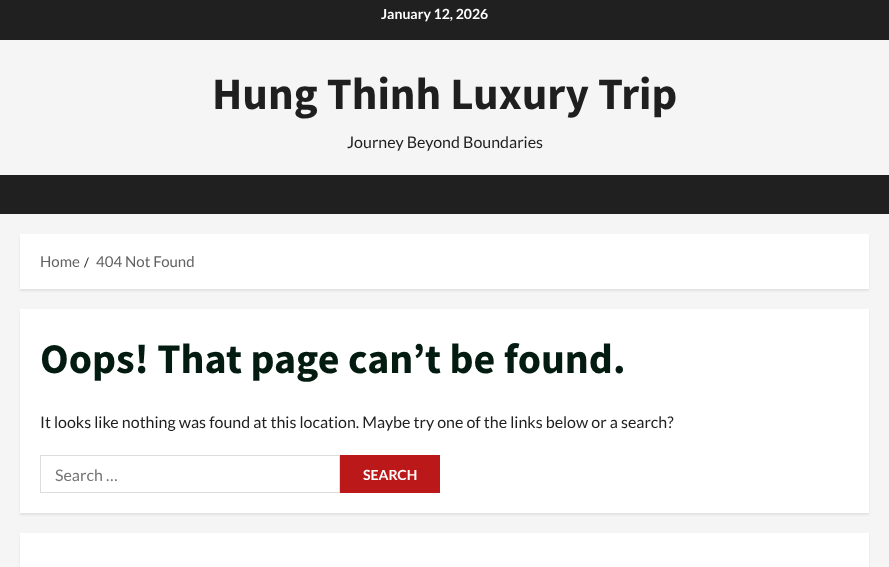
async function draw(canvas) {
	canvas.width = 889;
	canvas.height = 567;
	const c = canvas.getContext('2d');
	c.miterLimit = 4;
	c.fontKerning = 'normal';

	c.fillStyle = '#f5f5f5';
	c.fillRect(0, 0, 889, 567);
	c.fillStyle = '#202020';
	c.fillRect(0, 0, 889, 40);
	c.font = 'bold 14px Lato';
	c.fillStyle = '#fff';
	c.fillText('January 12, 2026', 381, 19);
	c.font = 'bold 45px Source Sans Pro';
	c.fillStyle = '#1f1f1f';
	c.fillText('Hung Thinh Luxury Trip', 212, 109);
	c.font = '16px Lato';
	c.fillText('Journey Beyond Boundaries', 347, 148);
	c.fillStyle = '#202020';
	c.fillRect(0, 175, 889, 39);
	c.fillStyle = '#00000014';
	c.filter = 'blur(1px)';
	c.beginPath();
	c.rect(20, 236, 849, 55);
	c.fill();
	c.filter = 'none';
	c.fillStyle = '#fff';
	c.fillRect(20, 234, 849, 55);
	c.font = '15px Lato';
	c.fillStyle = '#626262';
	c.fillText('Home', 40, 267);
	c.font = '13px Lato';
	c.fillStyle = '#1f1f1f';
	c.fillText('/', 84, 267);
	c.font = '15px Lato';
	c.fillStyle = '#626262';
	c.fillText('404 Not Found', 96, 267);
	c.fillStyle = '#00000014';
	c.filter = 'blur(1px)';
	c.beginPath();
	c.rect(20, 311, 849, 204);
	c.fill();
	c.filter = 'none';
	c.fillStyle = '#fff';
	c.fillRect(20, 309, 849, 204);
	c.font = 'bold 42px Source Sans Pro';
	c.fillStyle = '#031b11';
	c.fillText('Oops! That page can’t be found.', 40, 373);
	c.font = '16px Lato';
	c.fillStyle = '#1f1f1f';
	c.fillText('It looks like nothing was found at this location. Maybe try one of the links below or a search?', 40, 428);
	c.strokeStyle = '#dcdcdc';
	c.strokeRect(40.5, 455.5, 299, 37);
	c.fillStyle = '#757575';
	c.fillText('Search …', 55, 481);
	c.fillStyle = '#bb1919';
	c.fillRect(340, 455, 100, 38);
	c.font = 'bold 14px Lato';
	c.fillStyle = '#fff';
	c.fillText('SEARCH', 363, 480);
	c.fillStyle = '#00000014';
	c.filter = 'blur(1px)';
	c.beginPath();
	c.rect(20, 535, 849, 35);
	c.fill();
	c.filter = 'none';
	c.fillStyle = '#fff';
	c.fillRect(20, 533, 849, 34);
}

draw(document.querySelector('canvas'));
